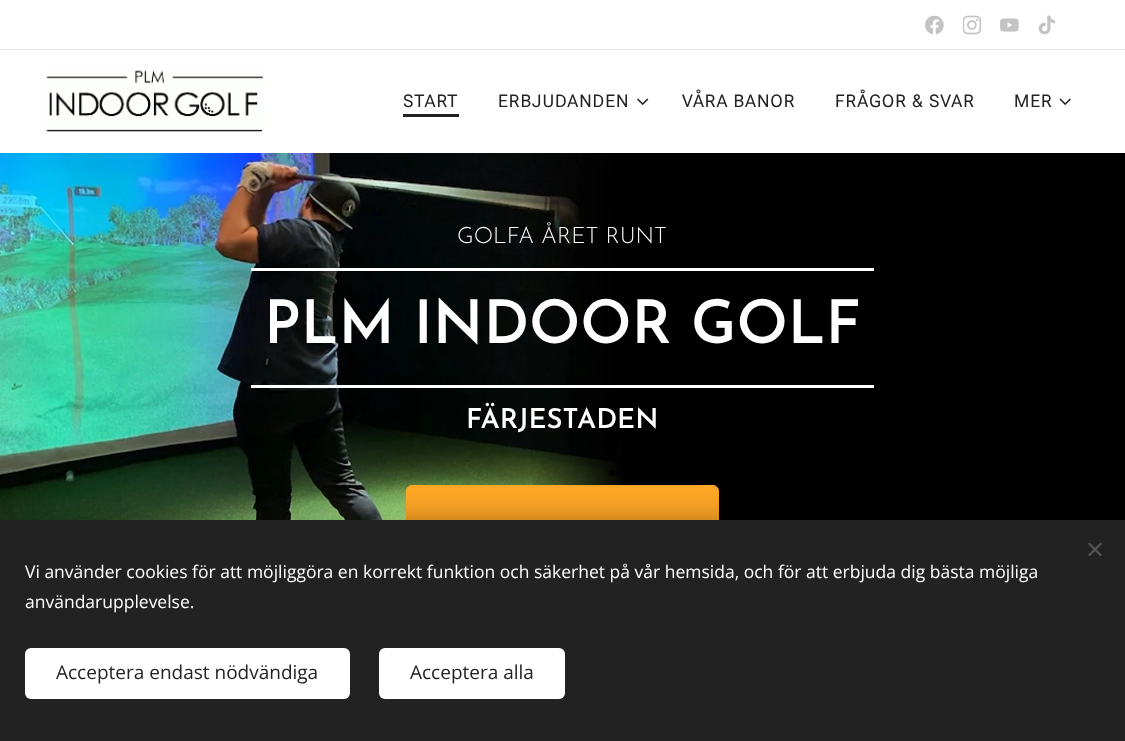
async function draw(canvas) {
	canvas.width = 1125;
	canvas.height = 741;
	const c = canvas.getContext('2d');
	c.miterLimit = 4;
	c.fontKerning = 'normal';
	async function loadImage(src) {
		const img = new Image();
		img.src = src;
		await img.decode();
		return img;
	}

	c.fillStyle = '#fff';
	c.fillRect(0, 0, 1125, 741);
	c.drawImage(await loadImage('img1.png'), 925, 15, 19, 20);
	c.drawImage(await loadImage('img2.png'), 963, 15, 18, 20);
	c.drawImage(await loadImage('img3.png'), 1000, 18, 19, 14);
	c.drawImage(await loadImage('img4.png'), 1038, 15, 17, 20);
	c.fillStyle = '#e8e8e8';
	c.fillRect(0, 49, 1125, 1);
	c.drawImage(await loadImage('img5.png'), 46, 70, 218, 62);
	c.letterSpacing = '0.9px';
	c.font = '17.5px Roboto Flex';
	c.fillStyle = '#222';
	c.fillText('START', 403, 107);
	c.fillRect(403, 114, 56, 3);
	c.fillText('ERBJUDANDEN', 498, 107);
	c.drawImage(await loadImage('img6.png'), 637, 98, 12, 7);
	for (const [text, x, y] of [
		['VÅRA BANOR', 682, 107],
		['FRÅGOR & SVAR', 835, 107],
		['MER', 1014, 107],
	]) {
		c.fillText(text, x, y);
	}
	c.drawImage(await loadImage('img7.png'), 1059, 98, 12, 7);
	c.drawImage(await loadImage('img8.png'), 0, 153, 1125, 367);
	c.letterSpacing = '0px';
	c.font = '300 22.5px Josefin Sans';
	c.fillStyle = '#fff';
	c.fillText('GOLFA ÅRET RUNT', 457, 243);
	c.fillRect(251, 268, 623, 3);
	c.fillRect(251, 385, 623, 3);
	c.font = '600 60px Josefin Sans';
	c.fillText('PLM INDOOR GOLF', 264, 343);
	c.font = '600 27.5px Josefin Sans';
	c.fillText('FÄRJESTADEN', 466, 428);
	c.fillStyle = '#ffa726';
	c.beginPath();
	c.roundRect(406.5, 485.5, 312, 68, 5.5);
	c.fill();
	c.strokeStyle = '#ffa726';
	c.stroke();
	c.fillStyle = '#00000054';
	c.filter = 'blur(15.5px)';
	c.beginPath();
	c.rect(0, 520, 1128, 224);
	c.fill();
	c.filter = 'none';
	c.fillStyle = '#222';
	c.fillRect(0, 520, 1125, 221);
	c.fillStyle = '#555';
	c.beginPath();
	c.moveTo(1088, 555);
	c.lineTo(1100.5, 542.5);
	c.lineTo(1102, 544);
	c.lineTo(1089.5, 556.5);
	c.closePath();
	c.fill();
	c.beginPath();
	c.moveTo(1089.5, 542.5);
	c.lineTo(1102, 555);
	c.lineTo(1100.5, 556.5);
	c.lineTo(1088, 544);
	c.closePath();
	c.fill();
	c.font = '17.5px Open Sans';
	c.fillStyle = '#fff';
	c.fillText('Vi använder cookies för att möjliggöra en korrekt funktion och säkerhet på vår hemsida, och för att erbjuda dig bästa möjliga', 25, 578);
	c.fillText('användarupplevelse.', 25, 608);
	c.beginPath();
	c.roundRect(25, 648, 325, 51, 6);
	c.fill();
	c.font = '19px Open Sans';
	c.fillStyle = '#222';
	c.fillText('Acceptera endast nödvändiga', 56, 679);
	c.fillStyle = '#fff';
	c.beginPath();
	c.roundRect(379, 648, 186, 51, 6);
	c.fill();
	c.fillStyle = '#222';
	c.fillText('Acceptera alla', 410, 679);
}

draw(document.querySelector('canvas'));
